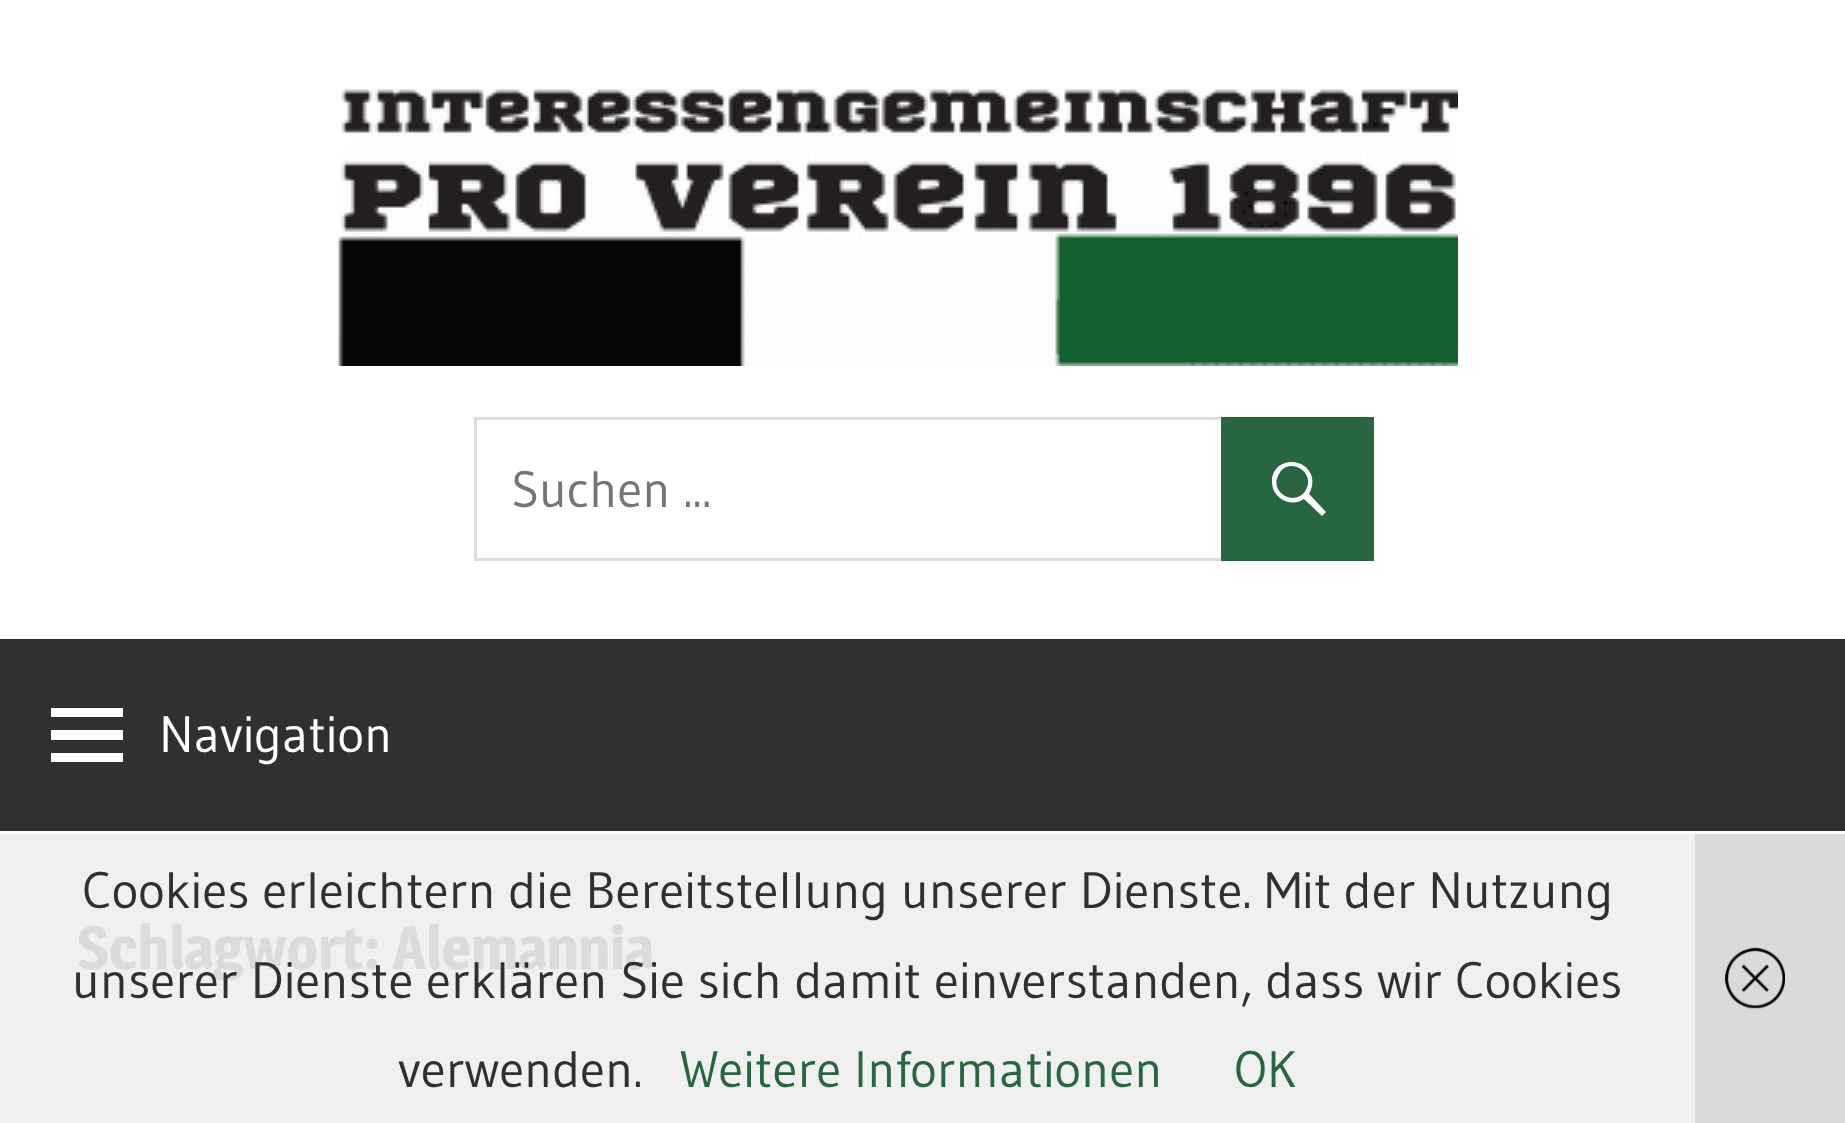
async function draw(canvas) {
	canvas.width = 1845;
	canvas.height = 1123;
	const c = canvas.getContext('2d');
	c.miterLimit = 4;
	c.fontKerning = 'normal';
	async function loadImage(src) {
		const img = new Image();
		img.src = src;
		await img.decode();
		return img;
	}

	c.fillStyle = '#fff';
	c.fillRect(0, 0, 1845, 1123);
	c.fillStyle = '#f0f0f0';
	c.fillRect(0, 834, 1695, 289);
	c.drawImage(await loadImage('img1.png'), 338, 89, 1120, 277);
	c.strokeStyle = '#ddd';
	c.lineWidth = 3;
	c.strokeRect(475.5, 418.5, 897, 141);
	c.font = '51px Gudea';
	c.fillStyle = '#757575';
	c.fillText('Suchen ...', 511, 507);
	c.fillStyle = '#276640';
	c.fillRect(1221, 417, 153, 144);
	c.fillStyle = '#fff';
	c.beginPath();
	c.moveTo(1326, 512);
	c.lineTo(1322, 516);
	c.lineTo(1304, 499);
	c.bezierCurveTo(1294, 506, 1280, 502, 1274, 491);
	c.bezierCurveTo(1272, 487, 1272, 483, 1272, 478);
	c.bezierCurveTo(1276, 457, 1306, 457, 1312, 477);
	c.bezierCurveTo(1313, 483, 1312, 489, 1309, 494);
	c.closePath();
	c.moveTo(1279, 474);
	c.bezierCurveTo(1268, 492, 1295, 508, 1306, 490);
	c.bezierCurveTo(1316, 472, 1289, 456, 1279, 474);
	c.closePath();
	c.fill();
	c.fillStyle = '#303030';
	c.fillRect(0, 639, 1845, 192);
	c.fillStyle = '#fff';
	c.beginPath();
	c.moveTo(51, 762);
	c.lineTo(51, 753);
	c.lineTo(123, 753);
	c.lineTo(123, 762);
	c.closePath();
	c.moveTo(51, 708);
	c.lineTo(123, 708);
	c.lineTo(123, 717);
	c.lineTo(51, 717);
	c.closePath();
	c.moveTo(51, 740);
	c.lineTo(51, 730);
	c.lineTo(123, 730);
	c.lineTo(123, 740);
	c.closePath();
	c.fill();
	c.fillText('Navigation', 159, 752);
	c.font = '600 60px Magra';
	c.fillStyle = '#dbdbdb';
	c.fillText('Schlagwort: Alemannia', 77, 969);
	c.font = '51px Gudea';
	c.fillStyle = '#303030';
	for (const [text, x, y] of [
		['Cookies erleichtern die Bereitstellung unserer Dienste. Mit der Nutzung', 82, 908],
		['unserer Dienste erklären Sie sich damit einverstanden, dass wir Cookies', 72, 998],
		['verwenden.', 398, 1087],
	]) {
		c.fillText(text, x, y);
	}
	c.fillStyle = '#276640';
	c.fillText('Weitere Informationen', 680, 1087);
	c.fillText('OK', 1234, 1087);
	c.fillStyle = '#dadada';
	c.fillRect(1695, 834, 150, 289);
	c.drawImage(await loadImage('img2.png'), 1725, 947, 60, 62);
}

draw(document.querySelector('canvas'));
